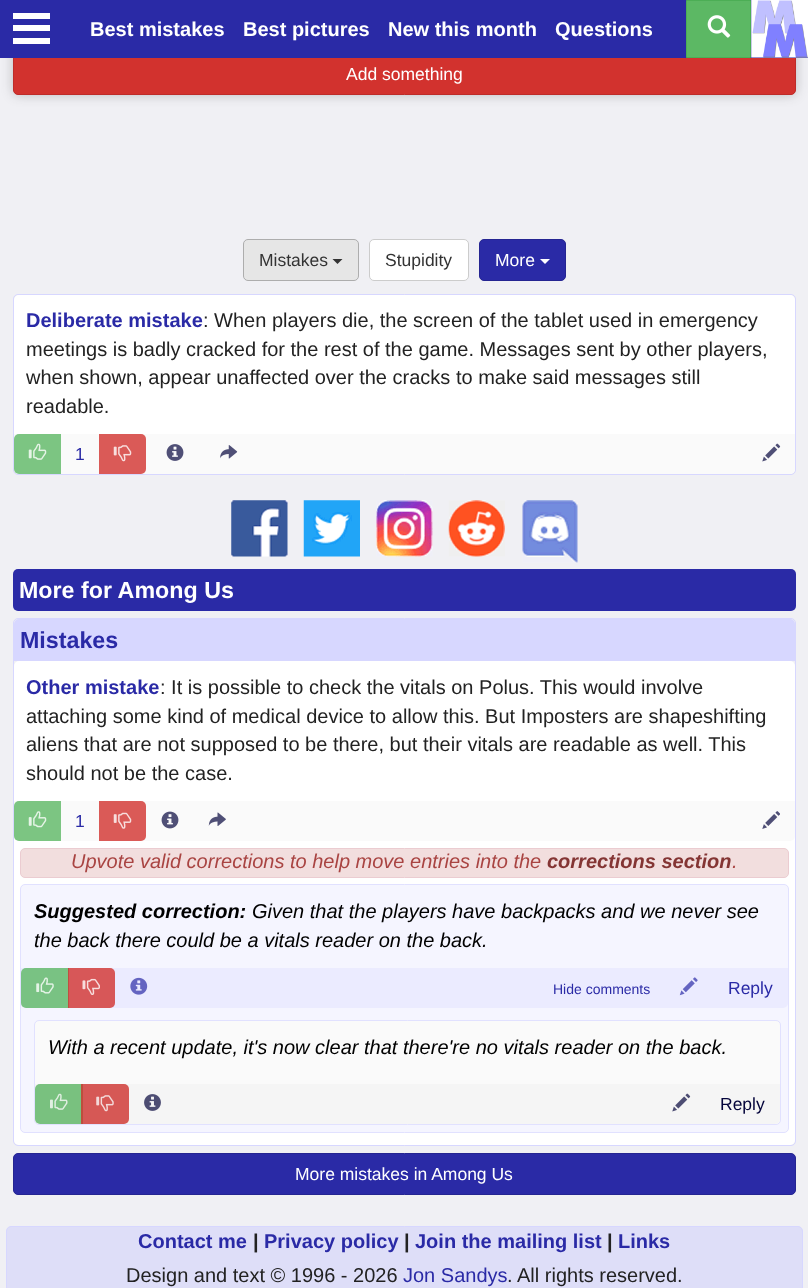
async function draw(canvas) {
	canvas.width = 808;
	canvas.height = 1288;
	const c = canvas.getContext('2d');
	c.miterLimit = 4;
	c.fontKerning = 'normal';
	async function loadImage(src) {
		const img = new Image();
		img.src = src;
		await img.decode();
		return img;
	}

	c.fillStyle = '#f0f0f4';
	c.fillRect(0, 0, 808, 1288);
	c.fillStyle = '#22222240';
	c.filter = 'blur(6px)';
	c.beginPath();
	c.roundRect(13, -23, 783, 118, 5);
	c.fill();
	c.filter = 'none';
	c.fillStyle = '#d2322e';
	c.beginPath();
	c.roundRect(13.5, 53.5, 782, 41, 4.5);
	c.fill();
	c.strokeStyle = '#be2c29';
	c.stroke();
	for (const [x, y, w, h, color] of [
		[0, 0, 808, 58, '#2a2aa6'],
		[13, 13, 37, 6, '#fff'],
		[13, 25, 37, 6, '#fff'],
		[13, 38, 37, 6, '#fff'],
	]) {
		c.fillStyle = color;
		c.fillRect(x, y, w, h);
	}
	c.font = 'bold 20px Liberation Sans';
	for (const [text, x, y] of [
		['Best mistakes', 90, 36],
		['Best pictures', 243, 36],
		['New this month', 388, 36],
		['Questions', 555, 36],
	]) {
		c.fillText(text, x, y);
	}
	c.fillStyle = '#5cb864';
	c.beginPath();
	c.rect(686.5, 0.5, 64, 57);
	c.fill();
	c.strokeStyle = '#4cae55';
	c.stroke();
	c.drawImage(await loadImage('img1.png'), 707, 15, 24, 23);
	c.drawImage(await loadImage('img2.png'), 751, 0, 57, 58);
	c.font = '17.5px Liberation Sans';
	c.fillStyle = '#fff';
	c.fillText('Add something', 346, 80);
	c.fillStyle = '#e6e6e6';
	c.beginPath();
	c.roundRect(243.5, 239.5, 115, 41, 4.5);
	c.fill();
	c.strokeStyle = '#adadad';
	c.stroke();
	c.fillStyle = '#333';
	c.fillText('Mistakes', 259, 266);
	c.beginPath();
	c.moveTo(332.5, 259);
	c.lineTo(342.5, 259);
	c.lineTo(337.5, 264);
	c.closePath();
	c.fill();
	c.fillStyle = '#fff';
	c.beginPath();
	c.roundRect(369.5, 239.5, 99, 41, 4.5);
	c.fill();
	c.strokeStyle = '#ccc';
	c.stroke();
	c.fillStyle = '#333';
	c.fillText('Stupidity', 385, 266);
	c.fillStyle = '#2a2aa6';
	c.beginPath();
	c.roundRect(479.5, 239.5, 86, 41, 4.5);
	c.fill();
	c.strokeStyle = '#252592';
	c.stroke();
	c.fillStyle = '#fff';
	c.fillText('More', 495, 266);
	c.beginPath();
	c.moveTo(540, 259);
	c.lineTo(550, 259);
	c.lineTo(545, 264);
	c.closePath();
	c.fill();
	c.beginPath();
	c.roundRect(13.5, 294.5, 782, 180, 4.5);
	c.strokeStyle = '#d7d7ff';
	c.stroke();
	c.beginPath();
	c.roundRect(14, 295, 781, 179, 5);
	c.fill();
	c.font = 'bold 20px Liberation Sans';
	c.fillStyle = '#2a2aa6';
	c.fillText('Deliberate mistake', 26, 327);
	c.font = '20px Liberation Sans';
	c.fillStyle = '#222';
	for (const [text, x, y] of [
		[': When players die, the screen of the tablet used in emergency', 203, 327],
		['meetings is badly cracked for the rest of the game. Messages sent by other players,', 26, 356],
		['when shown, appear unaffected over the cracks to make said messages still', 26, 384],
		['readable.', 26, 413],
	]) {
		c.fillText(text, x, y);
	}
	c.fillStyle = '#fafafa';
	c.beginPath();
	c.roundRect(14, 434, 781, 40, [0, 0, 5, 5]);
	c.fill();
	c.fillStyle = '#7cc582';
	c.beginPath();
	c.roundRect(14, 434, 47, 40, [5, 0, 0, 5]);
	c.fill();
	c.drawImage(await loadImage('img3.png'), 28, 443, 19, 17);
	c.font = '17.5px Liberation Sans';
	c.fillStyle = '#2a2aa6';
	c.fillText('1', 75, 460);
	c.fillStyle = '#da5a57';
	c.beginPath();
	c.roundRect(99, 434, 47, 40, [0, 5, 5, 0]);
	c.fill();
	c.drawImage(await loadImage('img4.png'), 113, 445, 19, 17);
	c.drawImage(await loadImage('img5.png'), 166, 444, 18, 17);
	c.drawImage(await loadImage('img6.png'), 220, 445, 18, 14);
	c.drawImage(await loadImage('img7.png'), 762, 443, 19, 19);
	c.drawImage(await loadImage('img8.png'), 231, 500, 57, 57);
	c.drawImage(await loadImage('img9.png'), 303, 500, 57, 57);
	c.drawImage(await loadImage('img10.png'), 376, 500, 57, 57);
	c.drawImage(await loadImage('img11.png'), 448, 500, 57, 57);
	c.drawImage(await loadImage('img12.png'), 522, 500, 56, 63);
	c.fillStyle = '#2a2aa6';
	c.beginPath();
	c.roundRect(13, 569, 783, 42, 5);
	c.fill();
	c.font = 'bold 23.25px Liberation Sans';
	c.fillStyle = '#fff';
	c.fillText('More for Among Us', 19, 598);
	c.beginPath();
	c.roundRect(13.5, 618.5, 782, 527, 4.5);
	c.stroke();
	c.fillStyle = '#d7d7ff';
	c.beginPath();
	c.roundRect(14, 619, 781, 42, [5, 5, 0, 0]);
	c.fill();
	c.fillStyle = '#2a2aa6';
	c.fillText('Mistakes', 20, 648);
	c.fillStyle = '#fff';
	c.beginPath();
	c.roundRect(14, 661, 781, 484, 5);
	c.fill();
	c.font = 'bold 20px Liberation Sans';
	c.fillStyle = '#2a2aa6';
	c.fillText('Other mistake', 26, 694);
	c.font = '20px Liberation Sans';
	c.fillStyle = '#222';
	for (const [text, x, y] of [
		[': It is possible to check the vitals on Polus. This would involve', 160, 694],
		['attaching some kind of medical device to allow this. But Imposters are shapeshifting', 26, 723],
		['aliens that are not supposed to be there, but their vitals are readable as well. This', 26, 751],
		['should not be the case.', 26, 780],
	]) {
		c.fillText(text, x, y);
	}
	c.fillStyle = '#fafafa';
	c.beginPath();
	c.roundRect(14, 801, 781, 40, [0, 0, 5, 5]);
	c.fill();
	c.fillStyle = '#7cc582';
	c.beginPath();
	c.roundRect(14, 801, 47, 40, [5, 0, 0, 5]);
	c.fill();
	c.drawImage(await loadImage('img13.png'), 28, 811, 19, 17);
	c.font = '17.5px Liberation Sans';
	c.fillStyle = '#2a2aa6';
	c.fillText('1', 75, 827);
	c.fillStyle = '#da5a57';
	c.beginPath();
	c.roundRect(99, 801, 47, 40, [0, 5, 5, 0]);
	c.fill();
	c.drawImage(await loadImage('img14.png'), 113, 812, 19, 17);
	c.drawImage(await loadImage('img15.png'), 161, 811, 18, 18);
	c.drawImage(await loadImage('img16.png'), 208, 812, 18, 14);
	c.drawImage(await loadImage('img17.png'), 762, 811, 18, 18);
	c.fillStyle = '#f2dede';
	c.beginPath();
	c.roundRect(20.5, 848.5, 768, 29, 4.5);
	c.fill();
	c.strokeStyle = '#ebccd1';
	c.stroke();
	c.font = 'italic 20px Liberation Sans';
	c.fillStyle = '#a94442';
	c.fillText('Upvote valid corrections to help move entries into the', 71, 868);
	c.font = 'italic bold 20px Liberation Sans';
	c.fillStyle = '#843534';
	c.fillText('corrections section', 547, 868);
	c.font = 'italic 20px Liberation Sans';
	c.fillStyle = '#a94442';
	c.fillText('.', 732, 868);
	c.fillStyle = '#f5f5ff';
	c.beginPath();
	c.roundRect(20.5, 884.5, 768, 248, 4.5);
	c.fill();
	c.strokeStyle = '#e1e1ff';
	c.stroke();
	c.font = 'italic bold 20px Liberation Sans';
	c.fillStyle = '#000';
	c.fillText('Suggested correction:', 34, 918);
	c.font = 'italic 20px Liberation Sans';
	c.fillText('Given that the players have backpacks and we never see', 252, 918);
	c.fillText('the back there could be a vitals reader on the back.', 34, 947);
	c.fillStyle = '#ebebff';
	c.beginPath();
	c.roundRect(21, 968, 767, 40, [0, 0, 5, 5]);
	c.fill();
	c.fillStyle = '#5cb864cc';
	c.beginPath();
	c.roundRect(21, 968, 48, 40, [5, 0, 0, 5]);
	c.fill();
	c.drawImage(await loadImage('img18.png'), 36, 977, 18, 17);
	c.fillStyle = '#d2322ecc';
	c.beginPath();
	c.roundRect(68, 968, 47, 40, [0, 5, 5, 0]);
	c.fill();
	c.drawImage(await loadImage('img19.png'), 82, 978, 18, 17);
	c.drawImage(await loadImage('img20.png'), 130, 977, 18, 18);
	c.font = '14px Liberation Sans';
	c.fillStyle = '#2a2aa6';
	c.fillText('Hide comments', 553, 994);
	c.drawImage(await loadImage('img21.png'), 679, 977, 19, 19);
	c.font = '17.5px Liberation Sans';
	c.fillText('Reply', 728, 994);
	c.fillStyle = '#fafafa';
	c.beginPath();
	c.roundRect(34.5, 1020.5, 746, 104, 4.5);
	c.fill();
	c.stroke();
	c.font = 'italic 20px Liberation Sans';
	c.fillStyle = '#000';
	c.fillText('With a recent update, it\'s now clear that there\'re no vitals reader on the back.', 48, 1054);
	c.save();
	c.beginPath();
	c.roundRect(35, 1021, 745, 103, 4);
	c.clip();
	c.fillStyle = '#f5f5f5';
	c.beginPath();
	c.roundRect(35, 1084, 745, 40, [0, 0, 5, 5]);
	c.fill();
	c.restore();
	c.fillStyle = '#79c17f';
	c.beginPath();
	c.roundRect(35, 1084, 48, 40, [5, 0, 0, 5]);
	c.fill();
	c.drawImage(await loadImage('img22.png'), 50, 1093, 18, 17);
	c.fillStyle = '#ce312dcc';
	c.beginPath();
	c.roundRect(81, 1084, 48, 40, [0, 5, 5, 0]);
	c.fill();
	c.drawImage(await loadImage('img23.png'), 96, 1095, 18, 17);
	c.drawImage(await loadImage('img24.png'), 144, 1094, 17, 17);
	c.drawImage(await loadImage('img25.png'), 672, 1093, 19, 19);
	c.font = '17.5px Liberation Sans';
	c.fillStyle = '#04043b';
	c.fillText('Reply', 720, 1110);
	c.fillStyle = '#2a2aa6';
	c.beginPath();
	c.roundRect(13.5, 1153.5, 782, 41, 4.5);
	c.fill();
	c.strokeStyle = '#252592';
	c.stroke();
	c.fillStyle = '#fff';
	c.fillText('More mistakes in Among Us', 295, 1180);
	c.fillStyle = '#dedef8';
	c.beginPath();
	c.roundRect(6.5, 1226.5, 796, 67, 4.5);
	c.fill();
	c.strokeStyle = '#d7d7ff';
	c.stroke();
	c.font = 'bold 20px Liberation Sans';
	c.fillStyle = '#2a2aa6';
	c.fillText('Contact me', 138, 1248);
	c.fillStyle = '#222';
	c.fillText('|', 253, 1248);
	c.fillStyle = '#2a2aa6';
	c.fillText('Privacy policy', 264, 1248);
	c.fillStyle = '#222';
	c.fillText('|', 404, 1248);
	c.fillStyle = '#2a2aa6';
	c.fillText('Join the mailing list', 415, 1248);
	c.fillStyle = '#222';
	c.fillText('|', 607, 1248);
	c.fillStyle = '#2a2aa6';
	c.fillText('Links', 618, 1248);
	c.font = '20px Liberation Sans';
	c.fillStyle = '#222';
	c.fillText('Design and text © 1996 - 2026', 126, 1282);
	c.fillStyle = '#2a2aa6';
	c.fillText('Jon Sandys', 403, 1282);
	c.fillStyle = '#222';
	c.fillText('. All rights reserved.', 507, 1282);
}

draw(document.querySelector('canvas'));
